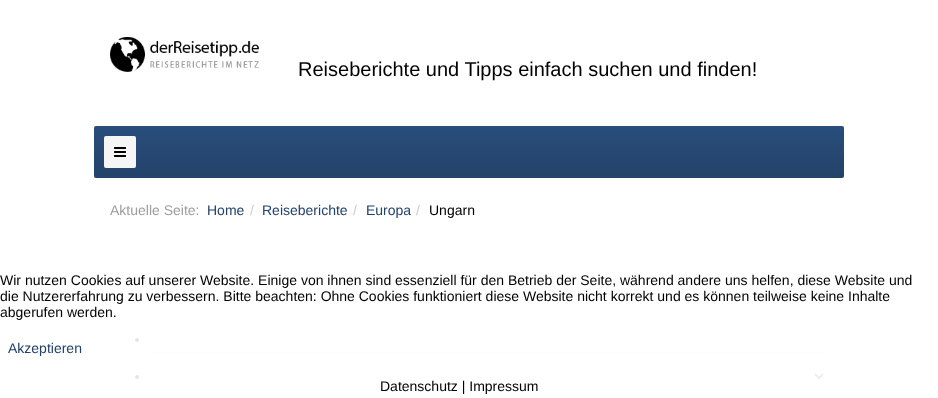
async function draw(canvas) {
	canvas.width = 938;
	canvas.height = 398;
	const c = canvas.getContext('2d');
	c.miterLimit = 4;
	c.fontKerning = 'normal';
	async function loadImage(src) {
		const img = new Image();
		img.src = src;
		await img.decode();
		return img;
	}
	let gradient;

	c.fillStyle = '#fff';
	c.fillRect(0, 0, 938, 398);
	c.drawImage(await loadImage('img1.png'), 110, 37, 150, 35);
	c.font = '20px Liberation Sans';
	c.fillStyle = '#000';
	c.fillText('Reiseberichte und Tipps einfach suchen und finden!', 298, 76);
	gradient = c.createLinearGradient(469, 126, 469, 178);
	gradient.addColorStop(0, '#294e7c');
	gradient.addColorStop(1, '#234269');
	c.fillStyle = gradient;
	c.beginPath();
	c.roundRect(94, 126, 750, 52, 2);
	c.fill();
	c.fillStyle = '#f5f5f5';
	c.beginPath();
	c.roundRect(104, 136, 32, 32, 2);
	c.fill();
	c.drawImage(await loadImage('img2.png'), 114, 147, 12, 10);
	c.font = '14px Liberation Sans';
	c.fillStyle = '#9e9e9e';
	c.fillText('Aktuelle Seite:', 110, 215);
	c.fillStyle = '#234269';
	c.fillText('Home', 207, 215);
	c.fillStyle = '#ccc';
	c.fillText('/', 250, 215);
	c.fillStyle = '#234269';
	c.fillText('Reiseberichte', 262, 215);
	c.fillStyle = '#ccc';
	c.fillText('/', 353, 215);
	c.fillStyle = '#234269';
	c.fillText('Europa', 366, 215);
	c.fillStyle = '#ccc';
	c.fillText('/', 416, 215);
	c.fillStyle = '#000';
	c.fillText('Ungarn', 429, 215);
	c.fillStyle = '#eee';
	c.fillRect(110, 293, 718, 1);
	c.fillStyle = '#000';
	c.beginPath();
	c.arc(137, 340, 2, 0, 2 * Math.PI);
	c.fill();
	c.beginPath();
	c.arc(137, 377, 2, 0, 2 * Math.PI);
	c.fill();
	c.fillStyle = '#ececec';
	c.beginPath();
	c.moveTo(152, 353);
	c.lineTo(826, 353);
	c.lineTo(827, 354);
	c.bezierCurveTo(827, 353, 827, 352, 826, 352);
	c.lineTo(152, 352);
	c.bezierCurveTo(151, 352, 151, 353, 151, 354);
	c.closePath();
	c.fill();
	c.beginPath();
	c.roundRect(150.5, 351.5, 677, 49, 1.5);
	c.strokeStyle = '#eee';
	c.stroke();
	c.beginPath();
	c.moveTo(815, 374);
	c.lineTo(819, 378);
	c.lineTo(823, 374);
	c.strokeStyle = '#555';
	c.lineWidth = 2;
	c.stroke();
	c.fillStyle = '#ffffffe6';
	c.fillRect(110, 293, 718, 105);
	c.fillStyle = '#000';
	for (const [text, x, y] of [
		['Wir nutzen Cookies auf unserer Website. Einige von ihnen sind essenziell für den Betrieb der Seite, während andere uns helfen, diese Website und', 0, 285],
		['die Nutzererfahrung zu verbessern. Bitte beachten: Ohne Cookies funktioniert diese Website nicht korrekt und es können teilweise keine Inhalte', 0, 301],
		['abgerufen werden.', 0, 317],
	]) {
		c.fillText(text, x, y);
	}
	c.fillStyle = '#234269';
	c.fillText('Akzeptieren', 8, 353);
	c.fillStyle = '#000';
	c.fillText('Datenschutz | Impressum', 380, 391);
}

draw(document.querySelector('canvas'));
